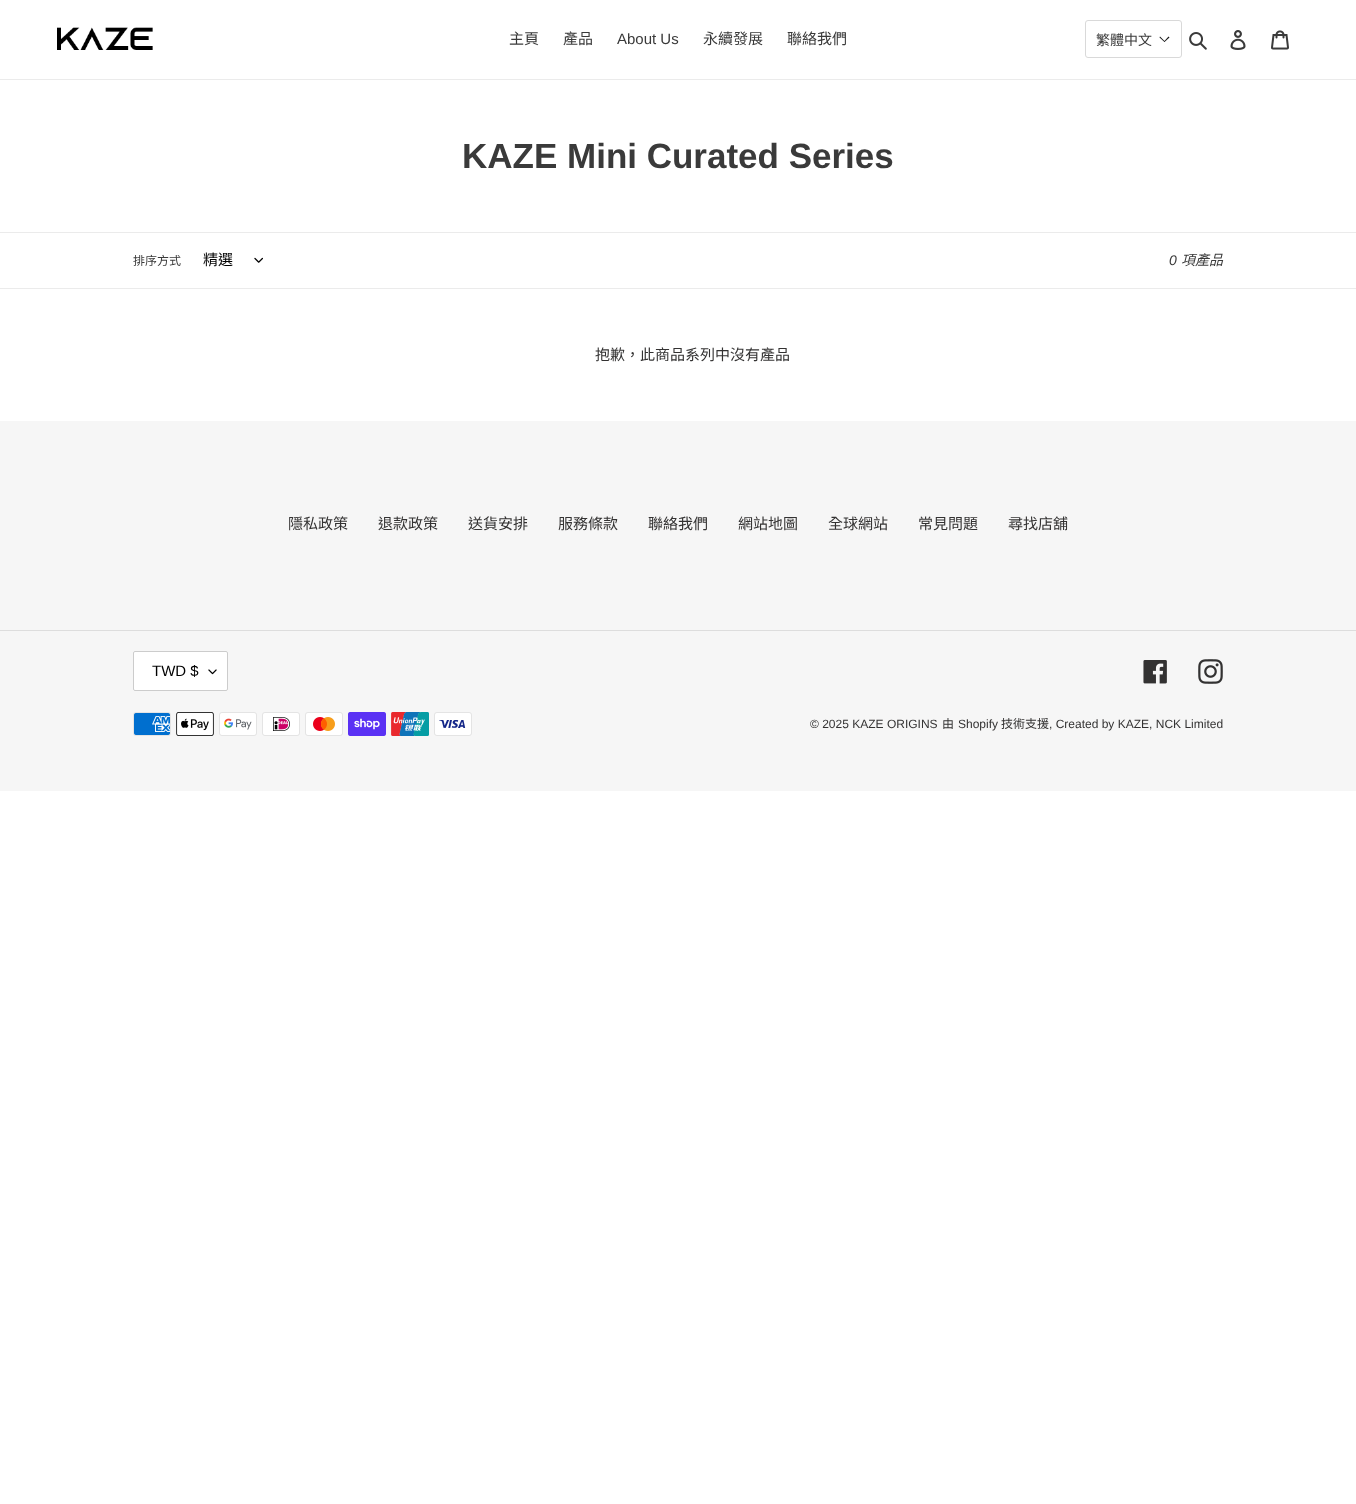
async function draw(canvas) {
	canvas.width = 1356;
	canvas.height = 1504;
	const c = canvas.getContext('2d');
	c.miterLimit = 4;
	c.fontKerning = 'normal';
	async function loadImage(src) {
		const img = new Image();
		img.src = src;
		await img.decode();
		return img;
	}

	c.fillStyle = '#fff';
	c.fillRect(0, 0, 1356, 1504);
	c.fillStyle = '#ebebeb';
	c.fillRect(0, 79, 1356, 1);
	c.drawImage(await loadImage('img1.png'), 57, 27, 96, 23);
	c.font = '15px Noto Sans CJK TC';
	c.fillStyle = '#3a3a3a';
	c.fillText('主頁', 509, 44);
	c.fillText('產品', 563, 44);
	c.font = '15px Liberation Sans';
	c.fillText('About Us', 617, 44);
	c.font = '15px Noto Sans CJK TC';
	c.fillText('永續發展', 703, 44);
	c.fillText('聯絡我們', 787, 44);
	c.beginPath();
	c.roundRect(1085.5, 20.5, 96, 37, 2.5);
	c.strokeStyle = '#d9d9d9';
	c.stroke();
	c.font = '14px Noto Sans CJK TC';
	c.fillText('繁體中文', 1096, 45);
	c.fillStyle = '#1a1a1a';
	c.beginPath();
	c.moveTo(1168.5, 36.5);
	c.lineTo(1169.5, 37.5);
	c.lineTo(1164.5, 42);
	c.lineTo(1164, 41.5);
	c.closePath();
	c.fill();
	c.beginPath();
	c.moveTo(1160, 36.5);
	c.lineTo(1165, 41.5);
	c.lineTo(1164.5, 42);
	c.lineTo(1159.5, 37.5);
	c.closePath();
	c.fill();
	c.drawImage(await loadImage('img2.png'), 1189, 32, 18, 18);
	c.drawImage(await loadImage('img3.png'), 1230, 30, 16, 20);
	c.drawImage(await loadImage('img4.png'), 1271, 30, 18, 20);
	c.font = 'bold 35px Liberation Sans';
	c.fillStyle = '#3a3a3a';
	c.fillText('KAZE Mini Curated Series', 462, 168);
	c.fillStyle = '#ebebeb';
	c.fillRect(0, 232, 1356, 1);
	c.fillRect(0, 288, 1356, 1);
	c.font = '12px Noto Sans CJK TC';
	c.fillStyle = '#3a3a3a';
	c.fillText('排序方式', 133, 265);
	c.font = '15px Noto Sans CJK TC';
	c.fillStyle = '#000';
	c.fillText('精選', 203, 265);
	c.drawImage(await loadImage('img5.png'), 254, 257, 9, 6);
	c.font = 'italic 14px Liberation Sans';
	c.fillStyle = '#3a3a3a';
	c.fillText('0', 1169, 265);
	c.font = 'italic 14px Noto Sans CJK TC';
	c.fillText('項產品', 1181, 265);
	c.font = '15px Noto Sans CJK TC';
	c.fillStyle = '#333232';
	c.fillText('抱歉，此商品系列中沒有產品', 595, 360);
	c.fillStyle = '#f6f6f6';
	c.fillRect(0, 421, 1356, 370);
	c.fillStyle = '#333232';
	for (const [text, x, y] of [
		['隱私政策', 288, 529],
		['退款政策', 378, 529],
		['送貨安排', 468, 529],
		['服務條款', 558, 529],
		['聯絡我們', 648, 529],
		['網站地圖', 738, 529],
		['全球網站', 828, 529],
		['常見問題', 918, 529],
		['尋找店舖', 1008, 529],
	]) {
		c.fillText(text, x, y);
	}
	c.fillStyle = '#ddd';
	c.fillRect(0, 630, 1356, 1);
	c.fillStyle = '#fff';
	c.beginPath();
	c.roundRect(133, 651, 95, 40, 2);
	c.fill();
	c.drawImage(await loadImage('img6.png'), 208, 669, 9, 6);
	c.beginPath();
	c.roundRect(133.5, 651.5, 94, 39, 1.5);
	c.strokeStyle = '#ccc';
	c.stroke();
	c.font = '15px Liberation Sans';
	c.fillStyle = '#000';
	c.fillText('TWD $', 152, 676);
	c.drawImage(await loadImage('img7.png'), 1143, 660, 24, 24);
	c.drawImage(await loadImage('img8.png'), 1198, 659, 25, 25);
	c.drawImage(await loadImage('img9.png'), 133, 712, 38, 24);
	c.drawImage(await loadImage('img10.png'), 176, 712, 38, 24);
	c.drawImage(await loadImage('img11.png'), 219, 712, 38, 24);
	c.drawImage(await loadImage('img12.png'), 262, 712, 38, 24);
	c.drawImage(await loadImage('img13.png'), 305, 712, 38, 24);
	c.drawImage(await loadImage('img14.png'), 348, 712, 38, 24);
	c.drawImage(await loadImage('img15.png'), 391, 712, 38, 24);
	c.drawImage(await loadImage('img16.png'), 434, 712, 38, 24);
	c.font = '12px Liberation Sans';
	c.fillStyle = '#333232';
	c.fillText('© 2025 KAZE ORIGINS', 810, 728);
	c.font = '12px Noto Sans CJK TC';
	c.fillText('由', 942, 728);
	c.font = '12px Liberation Sans';
	c.fillText('Shopify', 958, 728);
	c.font = '12px Noto Sans CJK TC';
	c.fillText('技術支援', 1001, 728);
	c.font = '12px Liberation Sans';
	c.fillText(', Created by KAZE, NCK Limited', 1049, 728);
}

draw(document.querySelector('canvas'));
